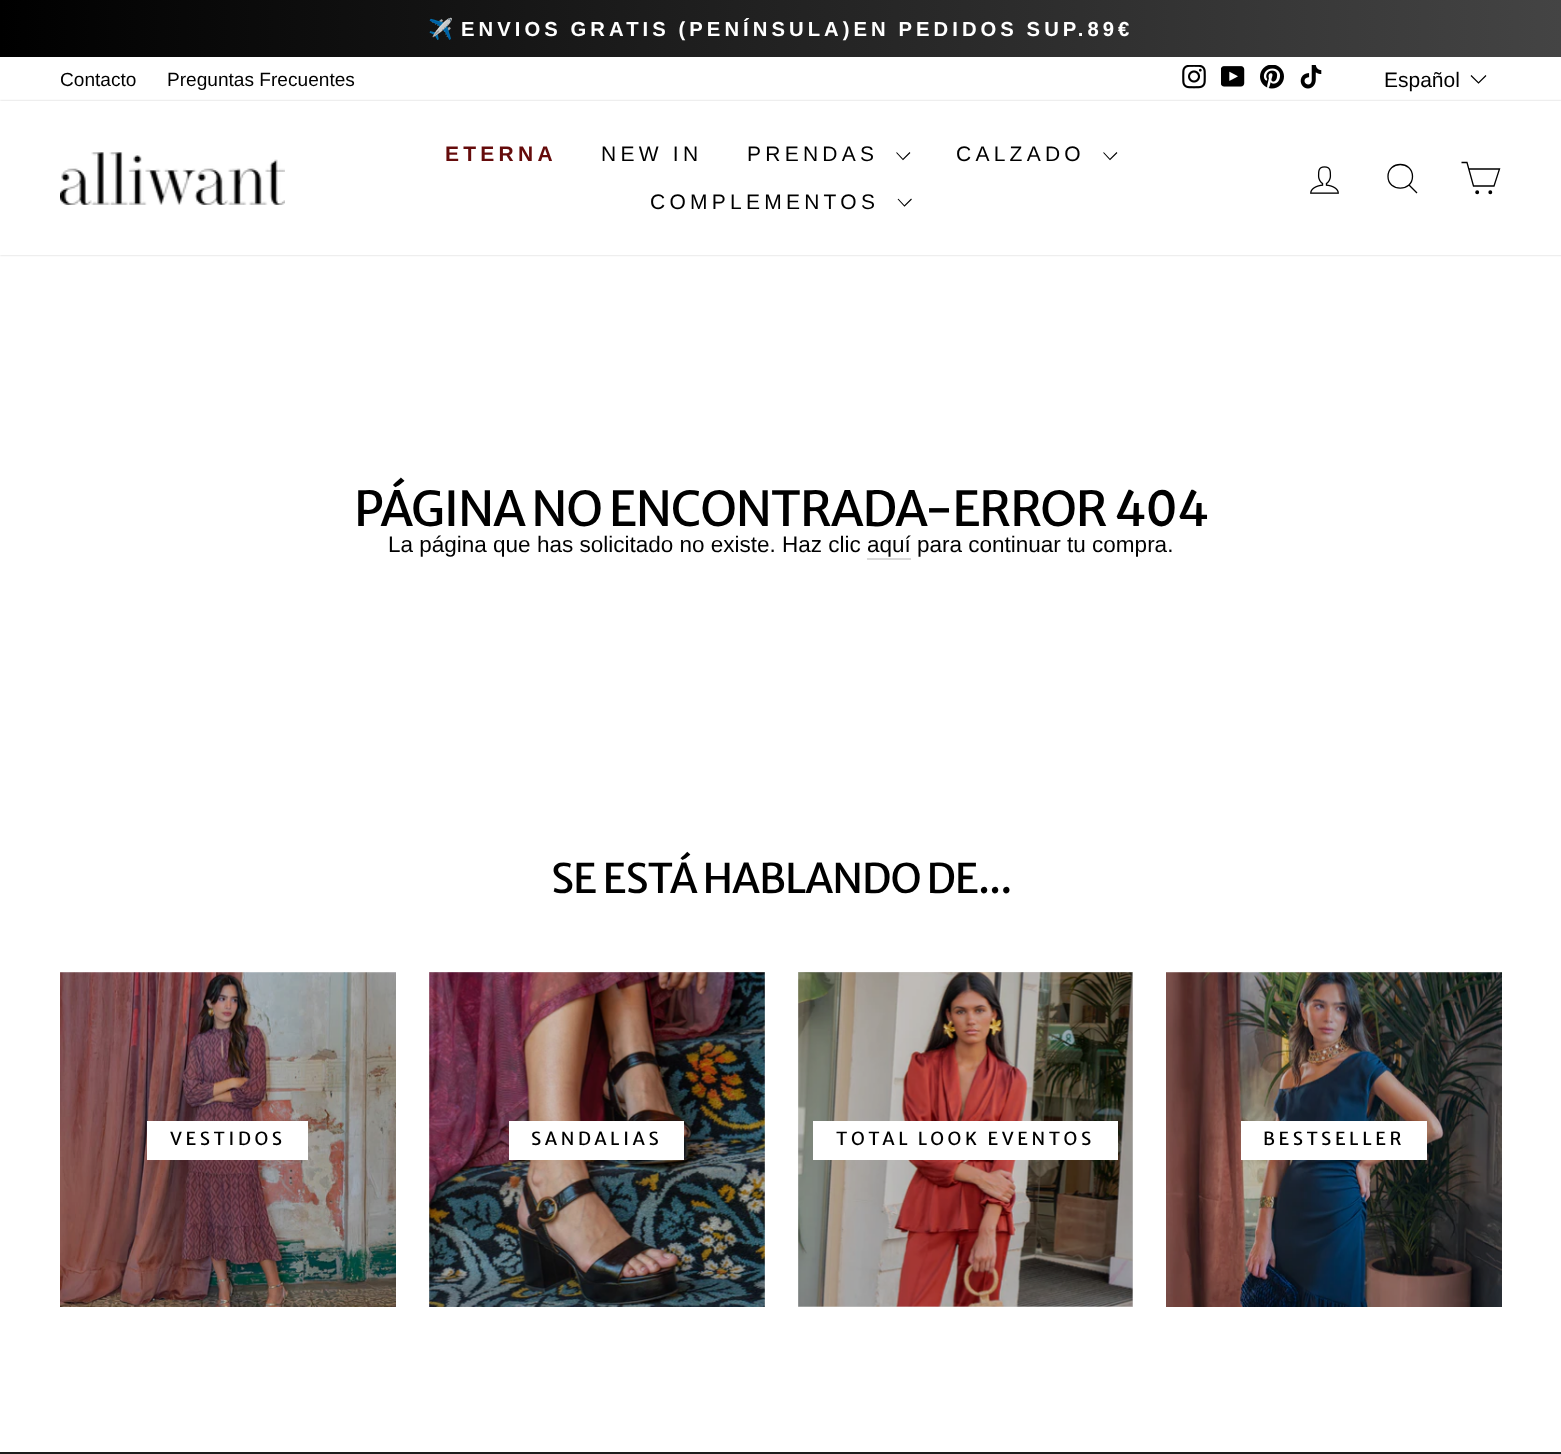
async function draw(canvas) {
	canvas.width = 1561;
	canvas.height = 1454;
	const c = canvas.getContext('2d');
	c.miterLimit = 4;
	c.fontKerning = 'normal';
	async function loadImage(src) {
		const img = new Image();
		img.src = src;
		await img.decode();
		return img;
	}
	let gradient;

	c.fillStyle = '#fff';
	c.fillRect(0, 0, 1561, 1454);
	c.fillStyle = '#d6d6d6';
	c.fillRect(798, 972, 335, 335);
	c.fillRect(429, 972, 336, 335);
	gradient = c.createLinearGradient(0, 29, 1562, 28);
	gradient.addColorStop(0, '#000');
	gradient.addColorStop(1, '#444');
	c.fillStyle = gradient;
	c.fillRect(0, 0, 1561, 57);
	c.letterSpacing = '4.05px';
	c.font = 'bold 20.25px Noto Color Emoji';
	c.fillStyle = '#fff';
	c.fillText('✈️', 428, 36);
	c.wordSpacing = '-1px';
	c.font = 'bold 20.25px Liberation Sans';
	c.fillText('ENVIOS GRATIS (PENÍNSULA)EN PEDIDOS SUP.89€', 461, 36);
	c.letterSpacing = '0px';
	c.wordSpacing = '0px';
	c.font = '19.1px Liberation Sans';
	c.fillStyle = '#000';
	c.fillText('Contacto', 60, 86);
	c.fillText('Preguntas Frecuentes', 167, 86);
	c.drawImage(await loadImage('img1.png'), 1182, 65, 24, 24);
	c.drawImage(await loadImage('img2.png'), 1221, 66, 24, 21);
	c.drawImage(await loadImage('img3.png'), 1260, 65, 24, 24);
	c.drawImage(await loadImage('img4.png'), 1300, 65, 22, 24);
	c.font = '21px Liberation Sans';
	c.fillText('Español', 1384, 87);
	c.beginPath();
	c.moveTo(1471, 75.5);
	c.lineTo(1478.5, 83);
	c.lineTo(1486, 75.5);
	c.strokeStyle = '#000';
	c.lineWidth = 1.2;
	c.stroke();
	c.save();
	c.beginPath();
	c.moveTo(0, 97);
	c.lineTo(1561, 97);
	c.lineTo(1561, 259);
	c.lineTo(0, 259);
	c.closePath();
	c.moveTo(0, 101);
	c.lineTo(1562, 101);
	c.lineTo(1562, 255);
	c.lineTo(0, 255);
	c.closePath();
	c.clip('evenodd');
	c.fillStyle = '#00000033';
	c.filter = 'blur(1px)';
	c.beginPath();
	c.rect(0, 101, 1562, 154);
	c.fill();
	c.filter = 'none';
	c.restore();
	c.drawImage(await loadImage('img5.png'), 60, 152, 225, 53);
	c.letterSpacing = '4.25px';
	c.font = 'bold 21px Liberation Sans';
	c.fillStyle = '#650b0b';
	c.fillText('ETERNA', 445, 161);
	c.font = '21px Liberation Sans';
	c.fillStyle = '#000';
	c.fillText('NEW IN', 601, 161);
	c.fillText('PRENDAS', 747, 161);
	c.beginPath();
	c.moveTo(896.5, 152.5);
	c.lineTo(903, 159.5);
	c.lineTo(910, 152.5);
	c.lineWidth = 1.1;
	c.stroke();
	c.fillText('CALZADO', 956, 161);
	c.beginPath();
	c.moveTo(1103.5, 152.5);
	c.lineTo(1110, 159.5);
	c.lineTo(1117, 152.5);
	c.stroke();
	c.fillText('COMPLEMENTOS', 650, 209);
	c.beginPath();
	c.moveTo(898, 199);
	c.lineTo(904.5, 206);
	c.lineTo(911.5, 199);
	c.stroke();
	c.drawImage(await loadImage('img6.png'), 1310, 166, 29, 28);
	c.beginPath();
	c.moveTo(1412.5, 176.5);
	c.bezierCurveTo(1412.5, 192, 1388, 192, 1388, 176.5);
	c.bezierCurveTo(1388, 160.5, 1412.5, 160.5, 1412.5, 176.5);
	c.closePath();
	c.moveTo(1417, 193);
	c.lineTo(1409, 185);
	c.lineWidth = 1.3;
	c.stroke();
	c.beginPath();
	c.moveTo(1468.5, 169);
	c.lineTo(1499.5, 169);
	c.lineTo(1494, 186);
	c.lineTo(1473.5, 186);
	c.lineTo(1467, 162.5);
	c.lineTo(1461.5, 162.5);
	c.stroke();
	c.beginPath();
	c.arc(1477.2, 192.3, 1.3, 0, 2 * Math.PI);
	c.fill();
	c.stroke();
	c.beginPath();
	c.arc(1490.3, 192.3, 1.3, 0, 2 * Math.PI);
	c.fill();
	c.stroke();
	c.letterSpacing = '-1.2px';
	c.font = '48px Merriweather Sans';
	c.fillText('PÁGINA NO ENCONTRADA-ERROR 404', 354, 526);
	c.letterSpacing = '0px';
	c.font = '22.5px Liberation Sans';
	c.fillText('La página que has solicitado no existe. Haz clic aquí', 388, 552);
	c.fillText('para continuar tu compra.', 917, 552);
	c.fillStyle = '#d9d9d9';
	c.fillRect(867, 558, 44, 2);
	c.letterSpacing = '-1px';
	c.font = '40.75px Merriweather Sans';
	c.fillStyle = '#000';
	c.fillText('SE ESTÁ HABLANDO DE...', 551, 893);
	c.drawImage(await loadImage('img7.png'), 60, 972, 336, 335);
	c.fillStyle = '#fff';
	c.fillRect(147, 1121, 161, 39);
	c.letterSpacing = '3.6px';
	c.font = '18px Merriweather Sans';
	c.fillStyle = '#000';
	c.fillText('VESTIDOS', 170, 1145);
	c.drawImage(await loadImage('img8.png'), 429, 972, 336, 335);
	c.fillStyle = '#fff';
	c.fillRect(509, 1121, 175, 39);
	c.fillStyle = '#000';
	c.fillText('SANDALIAS', 531, 1145);
	c.drawImage(await loadImage('img9.png'), 798, 972, 335, 335);
	c.fillStyle = '#fff';
	c.fillRect(813, 1121, 305, 39);
	c.fillStyle = '#000';
	c.fillText('TOTAL LOOK EVENTOS', 836, 1145);
	c.drawImage(await loadImage('img10.png'), 1166, 972, 336, 335);
	c.fillStyle = '#fff';
	c.fillRect(1241, 1121, 186, 39);
	c.fillStyle = '#000';
	c.fillText('BESTSELLER', 1263, 1145);
	c.fillStyle = '#1c1d1d';
	c.fillRect(0, 1452, 1561, 2);
}

draw(document.querySelector('canvas'));
